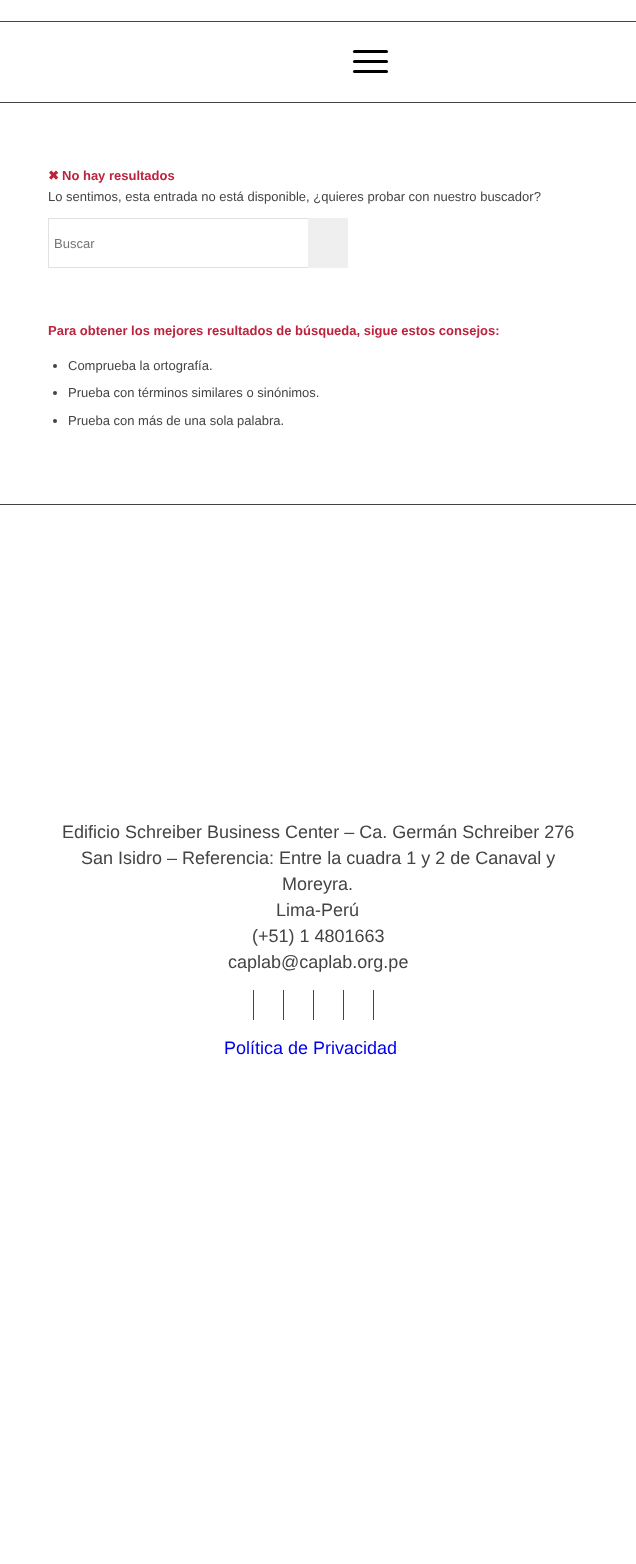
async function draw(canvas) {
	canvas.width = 636;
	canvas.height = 1564;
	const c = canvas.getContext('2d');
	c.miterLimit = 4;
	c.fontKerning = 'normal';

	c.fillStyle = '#fff';
	c.fillRect(0, 0, 636, 1564);
	c.fillStyle = '#444';
	c.fillRect(0, 21, 636, 1);
	c.fillRect(0, 102, 636, 1);
	c.fillStyle = '#000';
	c.beginPath();
	c.roundRect(353, 60, 35, 3, 1.5);
	c.fill();
	c.beginPath();
	c.roundRect(353, 50, 35, 3, 1.5);
	c.fill();
	c.beginPath();
	c.roundRect(353, 70, 35, 3, 1.5);
	c.fill();
	c.font = 'bold 13px DejaVu Sans';
	c.fillStyle = '#bc233d';
	c.fillText('✖', 48, 180);
	c.font = 'bold 13px Liberation Sans';
	c.fillText('No hay resultados', 62, 180);
	c.font = '13px Liberation Sans';
	c.fillStyle = '#444';
	c.fillText('Lo sentimos, esta entrada no está disponible, ¿quieres probar con nuestro buscador?', 48, 201);
	c.strokeStyle = '#e1e1e1';
	c.strokeRect(48.5, 218.5, 299, 49);
	c.fillStyle = '#757575';
	c.fillText('Buscar', 54, 248);
	c.fillStyle = '#efefef';
	c.fillRect(308, 218, 40, 50);
	c.font = 'bold 13px Liberation Sans';
	c.fillStyle = '#bc233d';
	c.fillText('Para obtener los mejores resultados de búsqueda, sigue estos consejos:', 48, 335);
	c.fillStyle = '#444';
	c.beginPath();
	c.arc(55, 366, 2, 0, 2 * Math.PI);
	c.fill();
	c.font = '13px Liberation Sans';
	c.fillText('Comprueba la ortografía.', 68, 370);
	c.beginPath();
	c.arc(55, 393, 2, 0, 2 * Math.PI);
	c.fill();
	c.fillText('Prueba con términos similares o sinónimos.', 68, 397);
	c.beginPath();
	c.arc(55, 421, 2, 0, 2 * Math.PI);
	c.fill();
	c.fillText('Prueba con más de una sola palabra.', 68, 425);
	c.fillRect(0, 504, 636, 1);
	c.font = '18px Liberation Sans';
	for (const [text, x, y] of [
		['Edificio Schreiber Business Center – Ca. Germán Schreiber 276', 62, 838],
		['San Isidro – Referencia: Entre la cuadra 1 y 2 de Canaval y', 81, 864],
		['Moreyra.', 282, 890],
		['Lima-Perú', 276, 916],
		['(+51) 1 4801663', 252, 942],
		['caplab@caplab.org.pe', 228, 968],
	]) {
		c.fillText(text, x, y);
	}
	for (const [x, y, w, h, color] of [
		[253, 990, 1, 30, '#444'],
		[283, 990, 1, 30, '#444'],
		[313, 990, 1, 30, '#444'],
		[343, 990, 1, 30, '#444'],
		[373, 990, 1, 30, '#444'],
	]) {
		c.fillStyle = color;
		c.fillRect(x, y, w, h);
	}
	c.fillStyle = '#00e';
	c.fillText('Política de Privacidad', 224, 1054);
}

draw(document.querySelector('canvas'));
